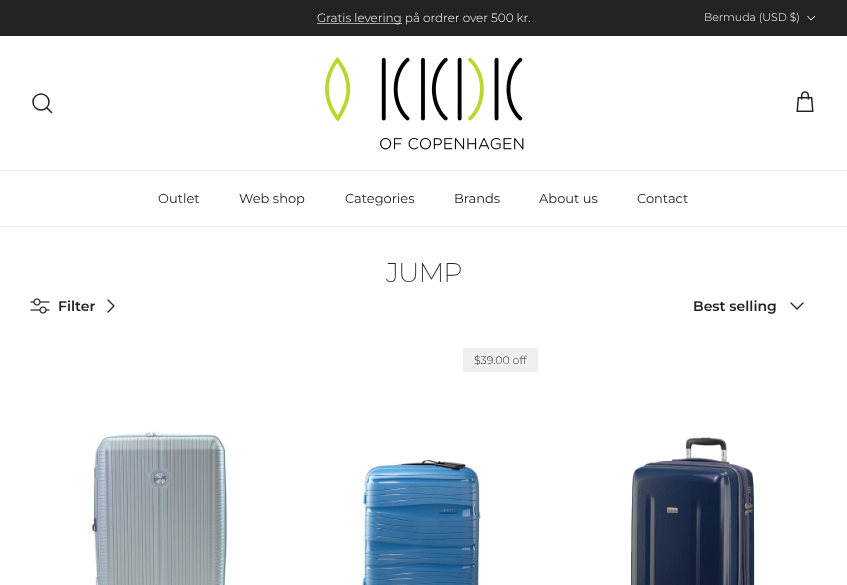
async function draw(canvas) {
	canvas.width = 847;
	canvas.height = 585;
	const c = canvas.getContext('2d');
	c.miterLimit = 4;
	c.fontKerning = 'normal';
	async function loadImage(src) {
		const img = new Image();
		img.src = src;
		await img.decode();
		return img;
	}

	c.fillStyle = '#fff';
	c.fillRect(0, 0, 847, 585);
	c.fillStyle = '#232323';
	c.fillRect(0, 0, 847, 36);
	c.fillStyle = '#a7a7a7';
	c.fillRect(317, 23, 85, 1);
	c.font = '300 12px Montserrat';
	c.fillStyle = '#fff';
	c.fillText('Gratis levering på ordrer over 500 kr.', 317, 22);
	c.font = '300 11px Montserrat';
	c.fillText('Bermuda (USD $)', 704, 21);
	c.beginPath();
	c.moveTo(815, 16);
	c.lineTo(811, 20);
	c.lineTo(807.5, 16);
	c.strokeStyle = '#fff';
	c.stroke();
	c.fillStyle = '#ececec';
	c.fillRect(0, 170, 847, 1);
	c.beginPath();
	c.arc(41, 102, 8, 0, 2 * Math.PI);
	c.strokeStyle = '#232323';
	c.lineWidth = 1.5;
	c.stroke();
	c.beginPath();
	c.moveTo(47, 108);
	c.lineTo(51.5, 112.5);
	c.lineCap = 'square';
	c.stroke();
	c.drawImage(await loadImage('img1.png'), 324, 56, 200, 94);
	c.drawImage(await loadImage('img2.png'), 796, 91, 18, 21);
	c.fillRect(0, 226, 847, 1);
	c.font = '13px Montserrat';
	c.fillStyle = '#232323';
	for (const [text, x, y] of [
		['Outlet', 158, 203],
		['Web shop', 239, 203],
		['Categories', 345, 203],
		['Brands', 454, 203],
		['About us', 539, 203],
		['Contact', 637, 203],
	]) {
		c.fillText(text, x, y);
	}
	c.letterSpacing = '-1px';
	c.font = '200 27px Montserrat';
	c.fillText('JUMP', 386, 282);
	c.drawImage(await loadImage('img3.png'), 30, 298, 20, 16);
	c.letterSpacing = '0px';
	c.font = '600 14px Montserrat';
	c.fillText('Filter', 58, 311);
	c.beginPath();
	c.moveTo(108, 312);
	c.lineTo(114, 306);
	c.lineTo(108, 300);
	c.lineWidth = 1.3;
	c.lineCap = 'round';
	c.lineJoin = 'round';
	c.stroke();
	c.fillText('Best selling', 693, 311);
	c.beginPath();
	c.moveTo(791, 303);
	c.lineTo(797, 309);
	c.lineTo(803, 303);
	c.stroke();
	c.fillStyle = '#efefef';
	c.fillRect(463, 348, 75, 24);
	c.font = '300 11px Montserrat';
	c.fillStyle = '#232323';
	c.fillText('$39.00 off', 474, 364);
	c.drawImage(await loadImage('img4.png'), 361, 460, 121, 125);
	c.drawImage(await loadImage('img5.png'), 91, 431, 138, 154);
	c.drawImage(await loadImage('img6.png'), 630, 437, 125, 148);
}

draw(document.querySelector('canvas'));
